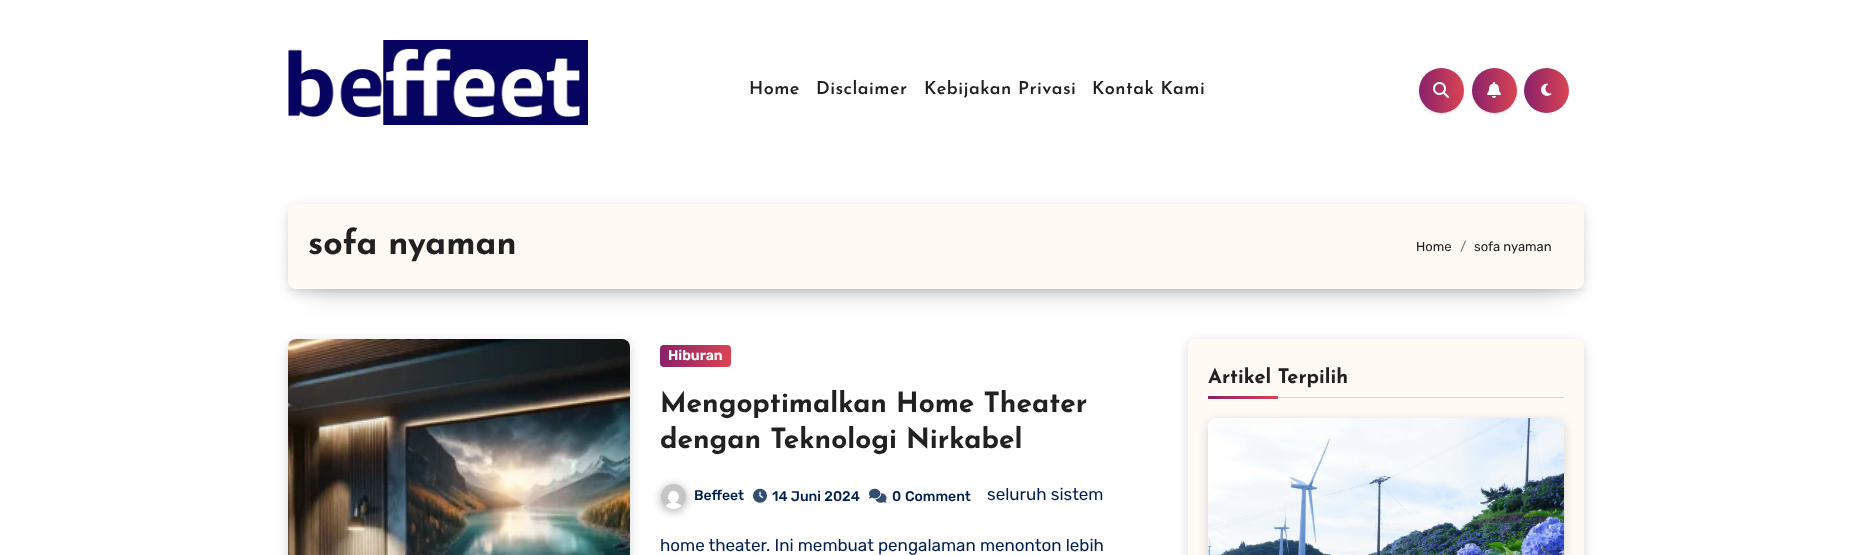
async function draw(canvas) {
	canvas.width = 1871;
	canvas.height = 555;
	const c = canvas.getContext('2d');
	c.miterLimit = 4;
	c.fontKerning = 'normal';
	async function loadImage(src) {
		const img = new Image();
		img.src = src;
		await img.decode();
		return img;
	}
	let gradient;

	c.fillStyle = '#fff';
	c.fillRect(0, 0, 1871, 555);
	c.drawImage(await loadImage('img1.png'), 288, 40, 300, 85);
	c.letterSpacing = '0.5px';
	c.font = '600 18px Josefin Sans';
	c.fillStyle = '#212121';
	for (const [text, x, y] of [
		['Home', 749, 94],
		['Disclaimer', 816, 94],
		['Kebijakan Privasi', 924, 94],
		['Kontak Kami', 1092, 94],
	]) {
		c.fillText(text, x, y);
	}
	c.fillStyle = '#00000026';
	c.filter = 'blur(1.5px)';
	c.beginPath();
	c.roundRect(1419, 69, 45, 45, 22.5);
	c.fill();
	c.filter = 'none';
	gradient = c.createLinearGradient(1419, 91, 1464, 91);
	gradient.addColorStop(0, '#89216b');
	gradient.addColorStop(1, '#da4453');
	c.fillStyle = gradient;
	c.beginPath();
	c.arc(1441.5, 90.5, 22.5, 0, 2 * Math.PI);
	c.fill();
	c.drawImage(await loadImage('img2.png'), 1433, 82, 16, 16);
	c.fillStyle = '#00000026';
	c.filter = 'blur(1.5px)';
	c.beginPath();
	c.roundRect(1472, 69, 45, 45, 22.5);
	c.fill();
	c.filter = 'none';
	gradient = c.createLinearGradient(1472, 91, 1517, 91);
	gradient.addColorStop(0, '#89216b');
	gradient.addColorStop(1, '#da4453');
	c.fillStyle = gradient;
	c.beginPath();
	c.arc(1494.5, 90.5, 22.5, 0, 2 * Math.PI);
	c.fill();
	c.drawImage(await loadImage('img3.png'), 1487, 82, 14, 16);
	gradient = c.createLinearGradient(1524, 91, 1569, 91);
	gradient.addColorStop(0, '#89216b');
	gradient.addColorStop(1, '#da4453');
	c.fillStyle = gradient;
	c.beginPath();
	c.arc(1546.5, 90.5, 22.5, 0, 2 * Math.PI);
	c.fill();
	c.drawImage(await loadImage('img4.png'), 1541, 83, 11, 13);
	c.fillStyle = '#070a1933';
	c.filter = 'blur(13.5px)';
	c.beginPath();
	c.rect(308, 246, 1256, 45);
	c.fill();
	c.filter = 'none';
	c.filter = 'blur(6px)';
	c.beginPath();
	c.roundRect(289, 208, 1294, 83, 7);
	c.fill();
	c.filter = 'none';
	c.fillStyle = '#fffaf4';
	c.beginPath();
	c.roundRect(288, 204, 1296, 85, 8);
	c.fill();
	c.letterSpacing = '0px';
	c.font = 'bold 34px Josefin Sans';
	c.fillStyle = '#212121';
	c.fillText('sofa nyaman', 308, 254);
	c.font = '13px Rubik';
	c.fillText('Home', 1416, 251);
	c.fillStyle = '#6c757d';
	c.fillText('/', 1460, 251);
	c.fillStyle = '#212121';
	c.fillText('sofa nyaman', 1474, 251);
	c.fillStyle = '#070a1933';
	c.filter = 'blur(6px)';
	c.beginPath();
	c.roundRect(289, 343, 340, 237, 7);
	c.fill();
	c.filter = 'none';
	c.drawImage(await loadImage('img5.png'), 288, 339, 342, 216);
	gradient = c.createLinearGradient(660, 356, 731, 356);
	gradient.addColorStop(0, '#89216b');
	gradient.addColorStop(1, '#da4453');
	c.fillStyle = gradient;
	c.beginPath();
	c.roundRect(660, 345, 71, 22, 4);
	c.fill();
	c.font = '600 14px Rubik';
	c.fillStyle = '#fff';
	c.fillText('Hiburan', 668, 360);
	c.font = 'bold 28px Josefin Sans';
	c.fillStyle = '#212121';
	c.fillText('Mengoptimalkan Home Theater', 660, 412);
	c.fillText('dengan Teknologi Nirkabel', 660, 448);
	c.fillStyle = '#2121214d';
	c.filter = 'blur(4px)';
	c.beginPath();
	c.roundRect(660, 485, 27, 27, 13.5);
	c.fill();
	c.filter = 'none';
	c.drawImage(await loadImage('img6.png'), 661, 484, 25, 25);
	c.font = '500 14px Rubik';
	c.fillStyle = '#002050';
	c.fillText('Beffeet', 694, 500);
	c.drawImage(await loadImage('img7.png'), 753, 488, 14, 15);
	c.fillText('14 Juni 2024', 772, 501);
	c.drawImage(await loadImage('img8.png'), 869, 488, 18, 15);
	c.fillText('0', 892, 501);
	c.fillText('Comment', 905, 501);
	c.font = '17px Rubik';
	c.fillText('seluruh sistem', 987, 500);
	c.fillText('home theater. Ini membuat pengalaman menonton lebih', 660, 551);
	c.fillStyle = '#070a1933';
	c.filter = 'blur(6px)';
	c.beginPath();
	c.roundRect(1189, 343, 394, 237, 7);
	c.fill();
	c.filter = 'none';
	c.fillStyle = '#fffaf4';
	c.beginPath();
	c.roundRect(1188, 339, 396, 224, 8);
	c.fill();
	c.fillStyle = '#d7d7d7';
	c.fillRect(1278, 397, 286, 1);
	c.font = 'bold 20px Josefin Sans';
	c.fillStyle = '#212121';
	c.fillText('Artikel Terpilih', 1208, 383);
	gradient = c.createLinearGradient(1208, 398, 1278, 398);
	gradient.addColorStop(0, '#89216b');
	gradient.addColorStop(1, '#da4453');
	c.fillStyle = gradient;
	c.fillRect(1208, 396, 70, 3);
	c.fillStyle = '#070a1933';
	c.filter = 'blur(6px)';
	c.beginPath();
	c.roundRect(1209, 422, 354, 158, 7);
	c.fill();
	c.filter = 'none';
	c.drawImage(await loadImage('img9.png'), 1208, 418, 356, 137);
}

draw(document.querySelector('canvas'));
